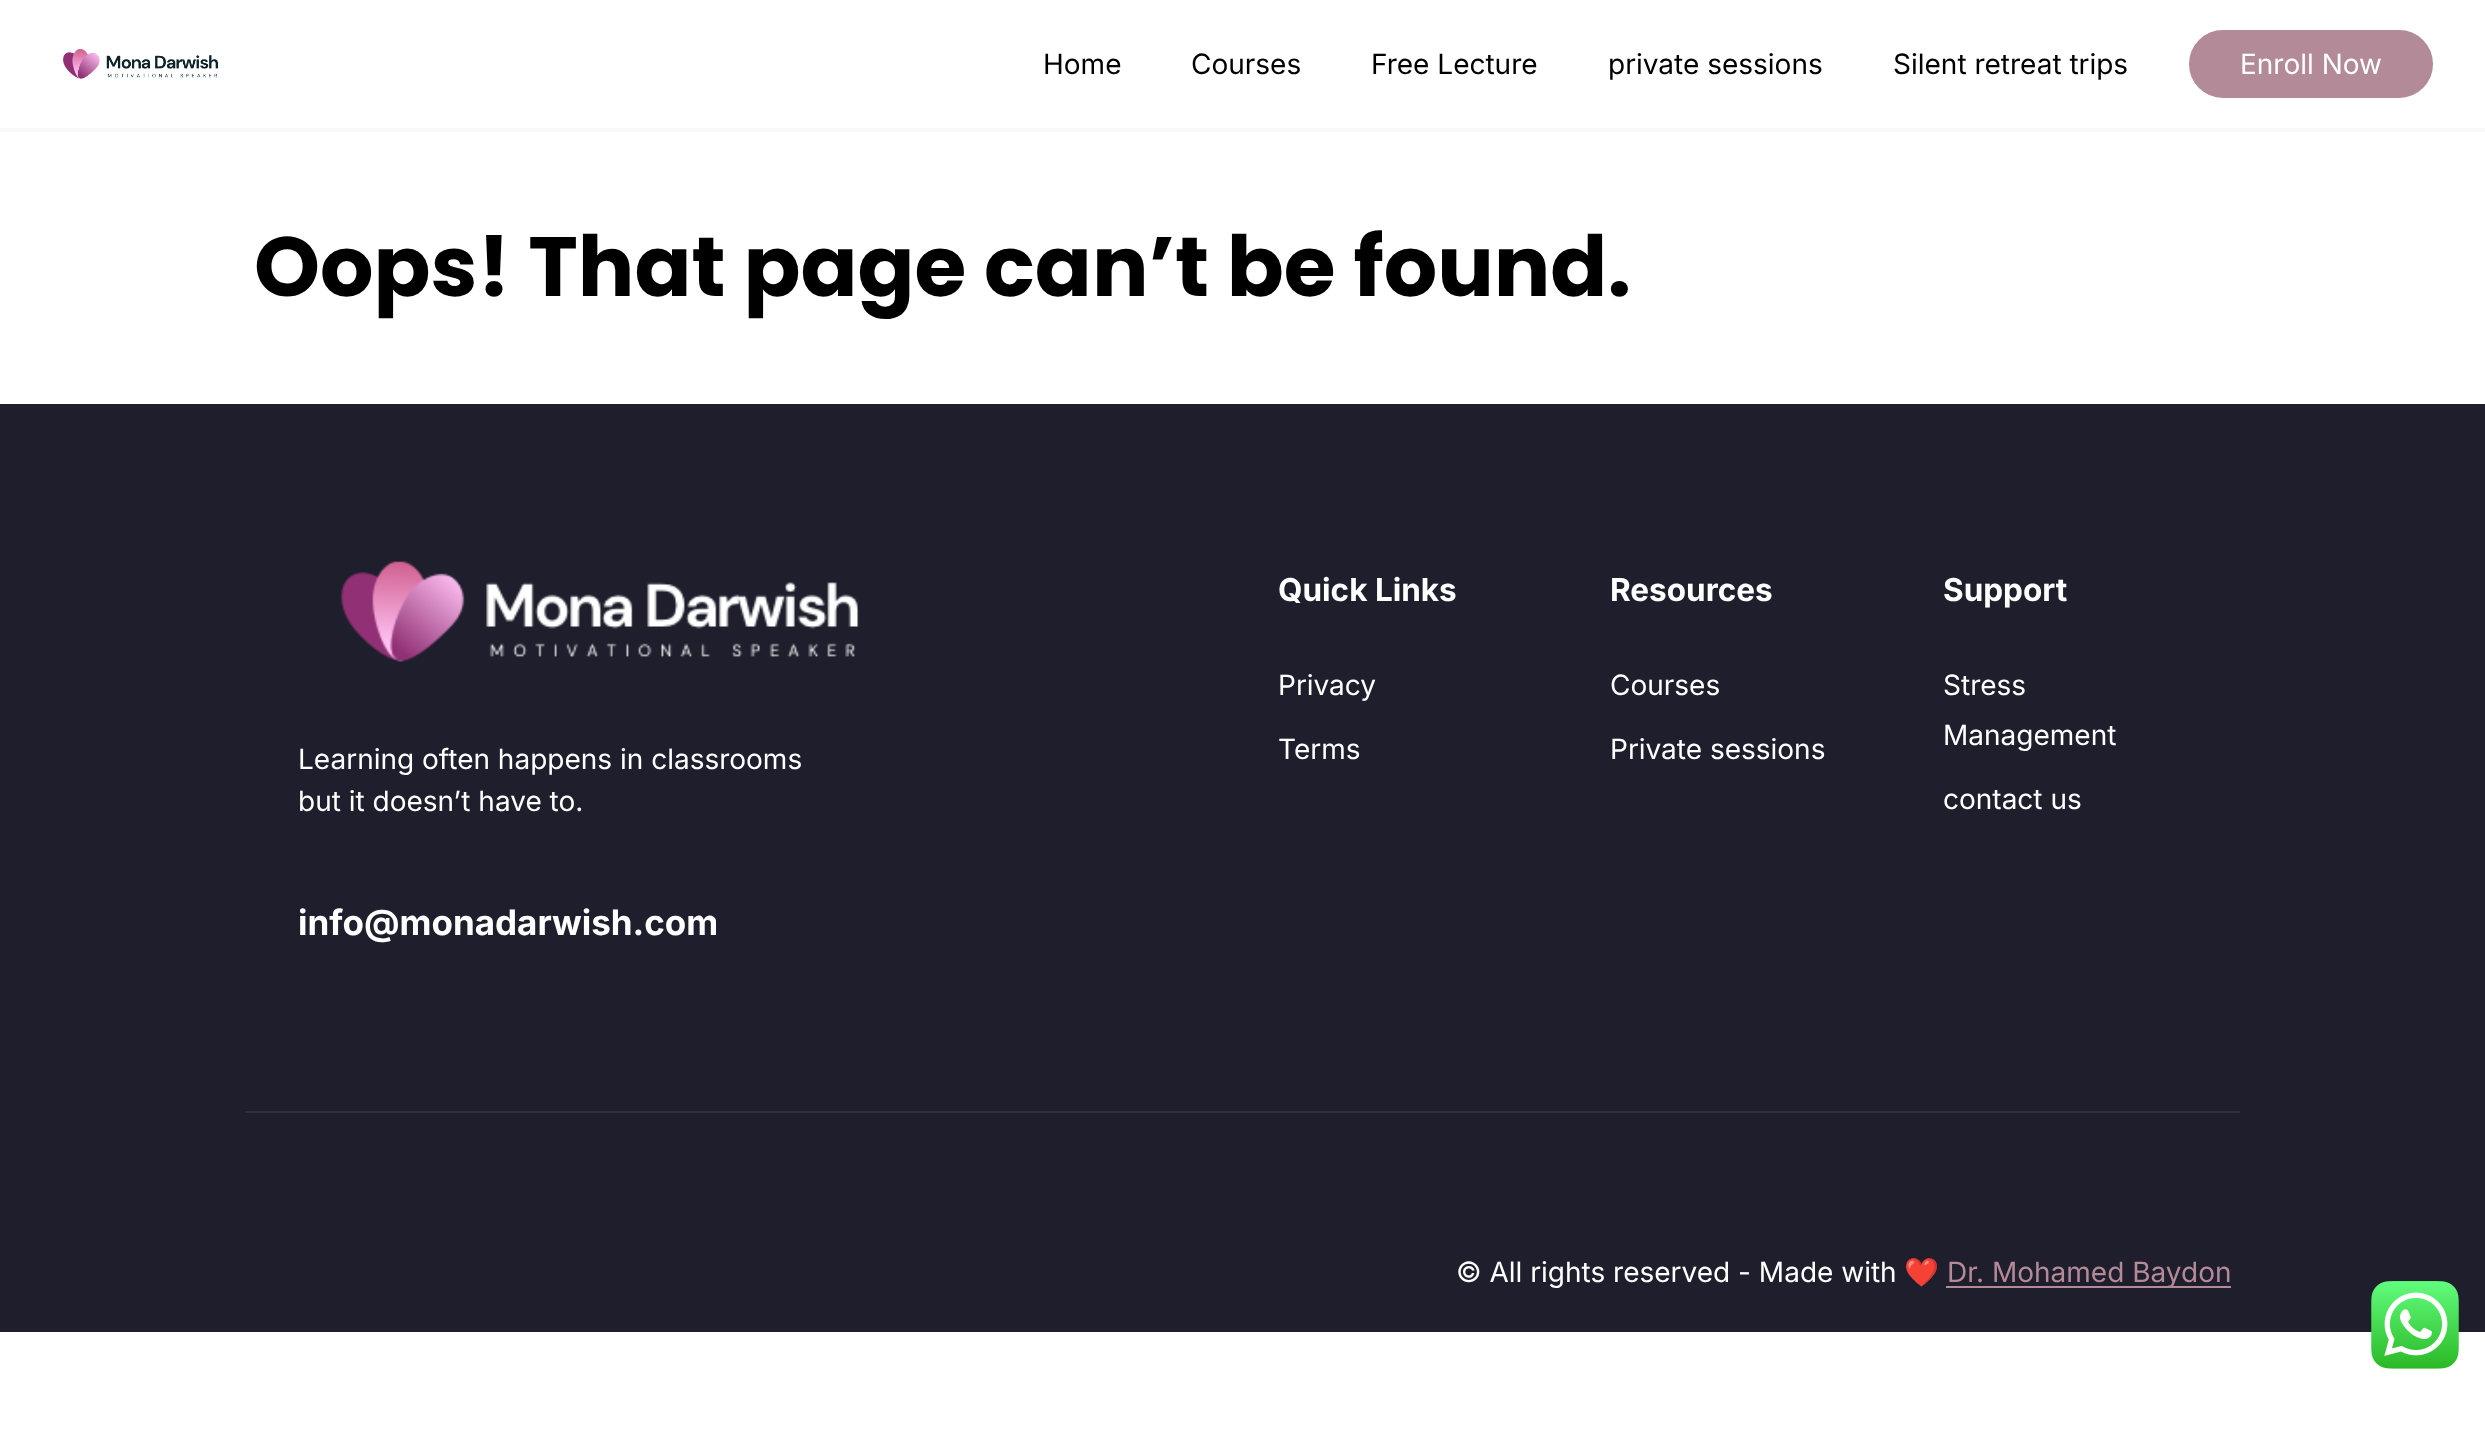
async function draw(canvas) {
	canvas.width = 2485;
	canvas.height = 1456;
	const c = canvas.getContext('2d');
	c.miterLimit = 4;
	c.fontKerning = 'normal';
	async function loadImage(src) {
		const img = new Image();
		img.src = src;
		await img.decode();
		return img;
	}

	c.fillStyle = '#fff';
	c.fillRect(0, 0, 2485, 1456);
	c.fillStyle = '#f8f8f8';
	c.fillRect(0, 128, 2485, 4);
	c.drawImage(await loadImage('img1.png'), 63, 49, 155, 30);
	c.font = '28px Inter';
	c.fillStyle = '#000';
	for (const [text, x, y] of [
		['Home', 1043, 74],
		['Courses', 1191, 74],
		['Free Lecture', 1371, 74],
		['private sessions', 1608, 74],
		['Silent retreat trips', 1893, 74],
	]) {
		c.fillText(text, x, y);
	}
	c.fillStyle = '#b38a98';
	c.beginPath();
	c.roundRect(2190, 31, 242, 66, 33);
	c.fill();
	c.strokeStyle = '#b38a98';
	c.lineWidth = 2;
	c.stroke();
	c.fillStyle = '#fff';
	c.fillText('Enroll Now', 2240, 74);
	c.font = 'bold 84px Poppins';
	c.fillStyle = '#000';
	c.fillText('Oops! That page can’t be found.', 254, 296);
	c.fillStyle = '#1e1e2c';
	c.fillRect(0, 404, 2485, 928);
	c.fillStyle = '#30303d';
	c.fillRect(245, 1111, 1995, 2);
	c.font = 'bold 31.5px Inter';
	c.fillStyle = '#fff';
	c.fillText('Quick Links', 1278, 601);
	c.font = '28px Inter';
	c.fillText('Privacy', 1278, 695);
	c.fillText('Terms', 1278, 759);
	c.font = 'bold 31.5px Inter';
	c.fillText('Resources', 1610, 601);
	c.font = '28px Inter';
	c.fillText('Courses', 1610, 695);
	c.fillText('Private sessions', 1610, 759);
	c.font = 'bold 31.5px Inter';
	c.fillText('Support', 1943, 601);
	c.font = '28px Inter';
	for (const [text, x, y] of [
		['Stress', 1943, 695],
		['Management', 1943, 745],
		['contact us', 1943, 809],
	]) {
		c.fillText(text, x, y);
	}
	c.drawImage(await loadImage('img2.png'), 340, 561, 520, 101);
	c.fillText('Learning often happens in classrooms', 298, 769);
	c.fillText('but it doesn’t have to.', 298, 811);
	c.font = 'bold 35px Inter';
	c.fillText('info@monadarwish.com', 298, 935);
	c.font = '28px Inter';
	c.fillText('© All rights reserved - Made with', 1456, 1282);
	c.font = '28px Noto Color Emoji';
	c.fillText('❤️', 1904, 1282);
	c.fillStyle = '#b38a98';
	c.fillRect(1946, 1286, 285, 2);
	c.font = '28px Inter';
	c.fillText('Dr. Mohamed Baydon', 1947, 1282);
	c.drawImage(await loadImage('img3.png'), 2371, 1281, 88, 88);
}

draw(document.querySelector('canvas'));
